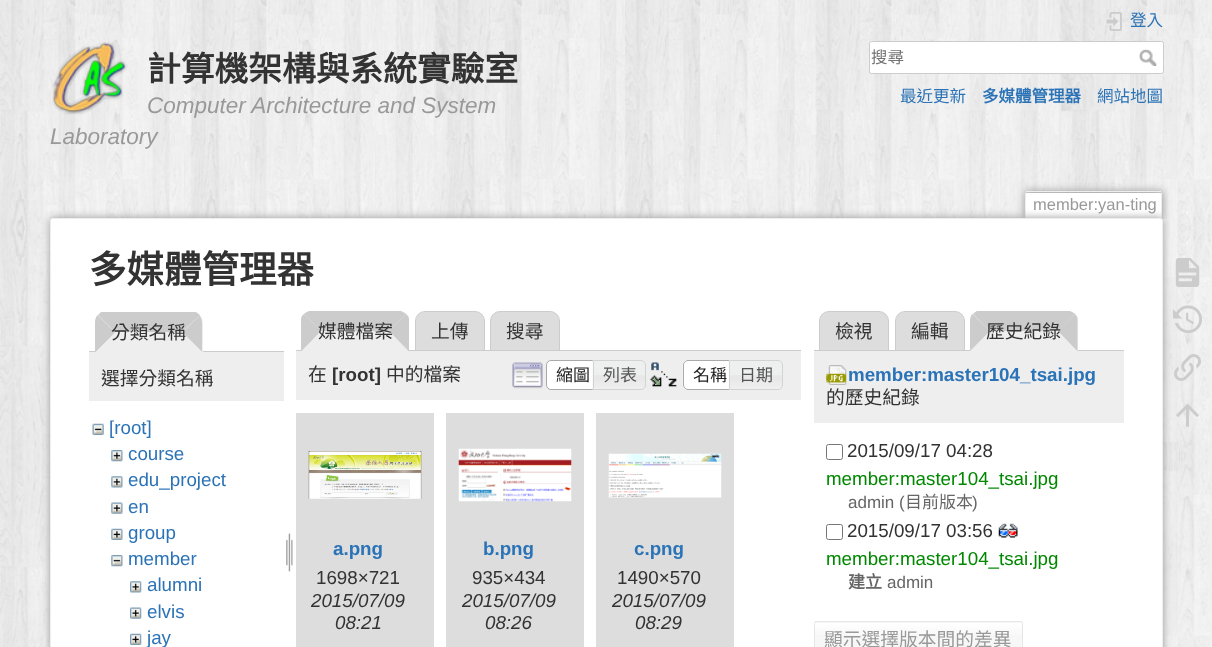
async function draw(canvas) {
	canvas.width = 1212;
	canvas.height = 647;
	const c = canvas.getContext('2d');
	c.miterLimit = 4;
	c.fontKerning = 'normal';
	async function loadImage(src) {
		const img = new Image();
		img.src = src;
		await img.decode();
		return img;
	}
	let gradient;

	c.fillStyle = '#fff';
	c.fillRect(0, 0, 1212, 647);
	c.drawImage(await loadImage('img1.png'), 0, 0, 1212, 647);
	c.drawImage(await loadImage('img2.png'), 50, 42, 78, 73);
	c.font = 'bold 33.75px Noto Sans CJK TC';
	c.fillStyle = '#333';
	c.fillText('計算機架構與系統實驗室', 147, 81);
	c.font = 'italic 22.5px Liberation Sans';
	c.fillStyle = '#999';
	c.fillText('Computer Architecture and System', 147, 113);
	c.fillText('Laboratory', 50, 144);
	c.drawImage(await loadImage('img3.png'), 1106, 12, 16, 19);
	c.font = '16.5px Noto Sans CJK TC';
	c.fillStyle = '#2b73b7';
	c.fillText('登入', 1130, 26);
	c.fillStyle = '#fff';
	c.beginPath();
	c.roundRect(869.5, 41.5, 294, 32, 2);
	c.fill();
	c.strokeStyle = '#ccc';
	c.stroke();
	c.fillStyle = '#757575';
	c.fillText('搜尋', 871, 63);
	c.drawImage(await loadImage('img4.png'), 1139, 49, 18, 17);
	c.fillStyle = '#2b73b7';
	c.fillText('最近更新', 900, 102);
	c.font = 'bold 16.5px Noto Sans CJK TC';
	c.fillText('多媒體管理器', 982, 102);
	c.font = '16.5px Noto Sans CJK TC';
	c.fillText('網站地圖', 1097, 102);
	c.save();
	c.beginPath();
	c.rect(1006, 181, 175, 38);
	c.clip();
	c.fillStyle = '#999';
	c.filter = 'blur(4px)';
	c.beginPath();
	c.roundRect(1025, 191, 138, 28, 2.5);
	c.fill();
	c.filter = 'none';
	c.restore();
	c.fillStyle = '#fff';
	c.beginPath();
	c.roundRect(1026, 193, 135, 26, [1, 1, 0, 0]);
	c.fill();
	for (const [x, y, w, h, color] of [
		[1026, 191, 135, 1, '#eee'],
		[1161, 193, 1, 26, '#eee'],
		[1025, 193, 1, 26, '#eee'],
	]) {
		c.fillStyle = color;
		c.fillRect(x, y, w, h);
	}
	c.font = '16.5px Liberation Sans';
	c.fillStyle = '#999';
	c.fillText('member:yan-ting', 1033, 210);
	c.filter = 'blur(4.5px)';
	c.beginPath();
	c.roundRect(50, 218, 1113, 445, 2.5);
	c.fill();
	c.filter = 'none';
	c.fillStyle = '#fff';
	c.beginPath();
	c.roundRect(50.5, 218.5, 1112, 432, 2);
	c.fill();
	c.strokeStyle = '#eee';
	c.stroke();
	c.font = 'bold 37.5px Noto Sans CJK TC';
	c.fillStyle = '#333';
	c.fillText('多媒體管理器', 89, 283);
	c.fillStyle = '#eee';
	c.fillRect(89, 352, 195, 49);
	c.fillStyle = '#ccc';
	c.fillRect(89, 351, 195, 1);
	c.fillStyle = '#eee';
	c.beginPath();
	c.roundRect(95, 313, 108, 40, [10, 10, 0, 0]);
	c.fill();
	c.fillStyle = '#ccc';
	c.beginPath();
	c.moveTo(196, 312);
	c.lineTo(101, 312);
	c.lineTo(98, 315);
	c.lineTo(115, 332);
	c.lineTo(182, 332);
	c.lineTo(200, 315);
	c.closePath();
	c.fill();
	c.beginPath();
	c.moveTo(199.5, 315.5);
	c.lineTo(182.5, 332.5);
	c.lineTo(202, 352);
	c.lineTo(202, 322);
	c.bezierCurveTo(202, 319.5, 201, 317, 199.5, 315.5);
	c.closePath();
	c.fill();
	c.fillStyle = '#eee';
	c.beginPath();
	c.moveTo(202, 352);
	c.lineTo(182, 332);
	c.lineTo(115, 332);
	c.lineTo(96, 352);
	c.closePath();
	c.fill();
	c.fillStyle = '#ccc';
	c.beginPath();
	c.moveTo(95.5, 352);
	c.lineTo(115, 332.5);
	c.lineTo(97.5, 315);
	c.bezierCurveTo(96, 317, 95, 319.5, 95, 322);
	c.lineTo(95, 352);
	c.closePath();
	c.fill();
	c.font = '18.75px Noto Sans CJK TC';
	c.fillStyle = '#333';
	c.fillText('分類名稱', 111, 339);
	c.fillText('選擇分類名稱', 101, 385);
	c.drawImage(await loadImage('img5.png'), 92, 423, 12, 12);
	c.font = '18.75px Liberation Sans';
	c.fillStyle = '#2b73b7';
	c.fillText('[root]', 109, 434);
	c.drawImage(await loadImage('img6.png'), 111, 450, 12, 12);
	c.fillText('course', 128, 460);
	c.drawImage(await loadImage('img7.png'), 111, 476, 12, 12);
	c.fillText('edu_project', 128, 486);
	c.drawImage(await loadImage('img8.png'), 111, 502, 12, 12);
	c.fillText('en', 128, 513);
	c.drawImage(await loadImage('img9.png'), 111, 528, 12, 12);
	c.fillText('group', 128, 539);
	c.drawImage(await loadImage('img10.png'), 111, 555, 12, 12);
	c.fillText('member', 128, 565);
	c.drawImage(await loadImage('img11.png'), 130, 581, 12, 12);
	c.fillText('alumni', 147, 591);
	c.drawImage(await loadImage('img12.png'), 130, 607, 12, 12);
	c.fillText('elvis', 147, 618);
	c.drawImage(await loadImage('img13.png'), 130, 633, 12, 12);
	c.fillText('jay', 147, 644);
	c.drawImage(await loadImage('img14.png'), 286, 532, 7, 40);
	c.fillStyle = '#ddd';
	c.beginPath();
	c.roundRect(415.5, 311.5, 69, 39, [9.5, 9.5, 0, 0]);
	c.fill();
	c.strokeStyle = '#ccc';
	c.stroke();
	c.beginPath();
	c.roundRect(490.5, 311.5, 69, 39, [9.5, 9.5, 0, 0]);
	c.fill();
	c.stroke();
	c.fillStyle = '#ccc';
	c.fillRect(296, 350, 505, 1);
	c.fillStyle = '#eee';
	c.beginPath();
	c.roundRect(301, 311, 108, 40, [10, 10, 0, 0]);
	c.fill();
	c.fillStyle = '#ccc';
	c.beginPath();
	c.moveTo(401, 311);
	c.lineTo(309, 311);
	c.bezierCurveTo(307, 312, 305, 313, 304, 314);
	c.lineTo(321, 331);
	c.lineTo(389, 331);
	c.lineTo(406, 314);
	c.bezierCurveTo(405, 313, 403, 312, 401, 311);
	c.closePath();
	c.fill();
	c.beginPath();
	c.moveTo(406, 314);
	c.lineTo(389, 331);
	c.lineTo(408.5, 351);
	c.lineTo(409, 351);
	c.lineTo(409, 318.5);
	c.bezierCurveTo(408.5, 316.5, 407.5, 315, 406, 314);
	c.closePath();
	c.fill();
	c.fillStyle = '#eee';
	c.beginPath();
	c.moveTo(408, 351);
	c.lineTo(389, 331);
	c.lineTo(321, 331);
	c.lineTo(302, 351);
	c.closePath();
	c.fill();
	c.fillStyle = '#ccc';
	c.beginPath();
	c.moveTo(301.5, 351);
	c.lineTo(321, 331);
	c.lineTo(304, 314);
	c.bezierCurveTo(302.5, 315, 301.5, 316.5, 301, 318.5);
	c.lineTo(301, 351);
	c.closePath();
	c.fill();
	c.font = '18.75px Noto Sans CJK TC';
	c.fillStyle = '#333';
	for (const [text, x, y] of [
		['媒體檔案', 318, 338],
		['上傳', 431, 338],
		['搜尋', 506, 338],
	]) {
		c.fillText(text, x, y);
	}
	c.fillStyle = '#eee';
	c.fillRect(296, 351, 505, 49);
	c.fillStyle = '#333';
	c.fillText('在', 308, 381);
	c.font = 'bold 18.75px Liberation Sans';
	c.fillText('[root]', 332, 381);
	c.font = '18.75px Noto Sans CJK TC';
	c.fillText('中的檔案', 386, 381);
	c.drawImage(await loadImage('img15.png'), 512, 362, 31, 27);
	c.fillStyle = '#fff';
	c.beginPath();
	c.roundRect(546.5, 360.5, 53, 29, [4.5, 0, 0, 4.5]);
	c.fill();
	c.strokeStyle = '#aaa';
	c.stroke();
	c.font = '17px Noto Sans CJK TC';
	c.fillStyle = '#212121';
	c.fillText('縮圖', 556, 381);
	c.drawImage(await loadImage('img16.png'), 592, 360, 54, 30);
	c.beginPath();
	c.roundRect(593.5, 360.5, 52, 29, [0, 4.5, 4.5, 0]);
	c.strokeStyle = '#d3d3d3';
	c.stroke();
	c.fillStyle = '#555';
	c.fillText('列表', 603, 381);
	c.drawImage(await loadImage('img17.png'), 649, 362, 28, 25);
	c.fillStyle = '#fff';
	c.beginPath();
	c.roundRect(683, 360, 53, 30, [5, 0, 0, 5]);
	c.fill();
	c.drawImage(await loadImage('img18.png'), 682, 360, 4, 30);
	c.beginPath();
	c.roundRect(683.5, 360.5, 52, 29, [4.5, 0, 0, 4.5]);
	c.strokeStyle = '#aaa';
	c.stroke();
	c.fillStyle = '#212121';
	c.fillText('名稱', 693, 381);
	c.drawImage(await loadImage('img19.png'), 728, 360, 54, 30);
	c.beginPath();
	c.roundRect(729.5, 360.5, 53, 29, [0, 4.5, 4.5, 0]);
	c.strokeStyle = '#d3d3d3';
	c.stroke();
	c.fillStyle = '#555';
	c.fillText('日期', 739, 381);
	c.fillStyle = '#ddd';
	c.fillRect(296, 413, 138, 234);
	c.drawImage(await loadImage('img20.png'), 308, 451, 114, 48);
	c.font = 'bold 18.75px Liberation Sans';
	c.fillStyle = '#2b73b7';
	c.fillText('a.png', 333, 555);
	c.font = '18.75px Liberation Sans';
	c.fillStyle = '#333';
	c.fillText('1698×721', 316, 584);
	c.font = 'italic 18.75px Liberation Sans';
	c.fillText('2015/07/09', 311, 607);
	c.fillText('08:21', 335, 629);
	c.fillStyle = '#ddd';
	c.fillRect(446, 413, 138, 234);
	c.drawImage(await loadImage('img21.png'), 458, 448, 114, 54);
	c.font = 'bold 18.75px Liberation Sans';
	c.fillStyle = '#2b73b7';
	c.fillText('b.png', 483, 555);
	c.font = '18.75px Liberation Sans';
	c.fillStyle = '#333';
	c.fillText('935×434', 472, 584);
	c.font = 'italic 18.75px Liberation Sans';
	c.fillText('2015/07/09', 462, 607);
	c.fillText('08:26', 485, 629);
	c.fillStyle = '#ddd';
	c.fillRect(596, 413, 138, 234);
	c.drawImage(await loadImage('img22.png'), 608, 453, 114, 45);
	c.font = 'bold 18.75px Liberation Sans';
	c.fillStyle = '#2b73b7';
	c.fillText('c.png', 634, 555);
	c.font = '18.75px Liberation Sans';
	c.fillStyle = '#333';
	c.fillText('1490×570', 617, 584);
	c.font = 'italic 18.75px Liberation Sans';
	c.fillText('2015/07/09', 612, 607);
	c.fillText('08:29', 635, 629);
	c.fillStyle = '#ddd';
	c.beginPath();
	c.roundRect(819.5, 311.5, 69, 39, [9.5, 9.5, 0, 0]);
	c.fill();
	c.strokeStyle = '#ccc';
	c.stroke();
	c.font = '18.75px Noto Sans CJK TC';
	c.fillStyle = '#333';
	c.fillText('檢視', 835, 338);
	c.fillStyle = '#ddd';
	c.beginPath();
	c.roundRect(895.5, 311.5, 69, 39, [9.5, 9.5, 0, 0]);
	c.fill();
	c.stroke();
	c.fillStyle = '#333';
	c.fillText('編輯', 911, 338);
	c.fillStyle = '#ccc';
	c.fillRect(814, 350, 310, 1);
	c.fillStyle = '#eee';
	c.beginPath();
	c.roundRect(970, 311, 108, 40, [10, 10, 0, 0]);
	c.fill();
	c.fillStyle = '#ccc';
	c.beginPath();
	c.moveTo(1070, 311);
	c.lineTo(977, 311);
	c.bezierCurveTo(975, 312, 974, 313, 973, 314);
	c.lineTo(990, 331);
	c.lineTo(1058, 331);
	c.lineTo(1075, 314);
	c.bezierCurveTo(1074, 313, 1072, 312, 1070, 311);
	c.closePath();
	c.fill();
	c.beginPath();
	c.moveTo(1075, 314);
	c.lineTo(1057.5, 331);
	c.lineTo(1077, 351);
	c.lineTo(1077.5, 351);
	c.lineTo(1077.5, 318);
	c.bezierCurveTo(1077, 316.5, 1076, 315, 1075, 314);
	c.closePath();
	c.fill();
	c.fillStyle = '#eee';
	c.beginPath();
	c.moveTo(1077, 351);
	c.lineTo(1058, 331);
	c.lineTo(990, 331);
	c.lineTo(970, 351);
	c.closePath();
	c.fill();
	c.fillStyle = '#ccc';
	c.beginPath();
	c.moveTo(970, 351);
	c.lineTo(990, 331);
	c.lineTo(972.5, 314);
	c.bezierCurveTo(971, 315.5, 970, 318, 970, 321);
	c.closePath();
	c.fill();
	c.fillStyle = '#333';
	c.fillText('歷史紀錄', 986, 338);
	c.fillStyle = '#eee';
	c.fillRect(814, 351, 310, 72);
	c.drawImage(await loadImage('img23.png'), 826, 365, 21, 20);
	c.font = 'bold 18.75px Liberation Sans';
	c.fillStyle = '#2b73b7';
	c.fillText('member:master104_tsai.jpg', 848, 381);
	c.font = '18.75px Noto Sans CJK TC';
	c.fillStyle = '#333';
	c.fillText('的歷史紀錄', 826, 404);
	c.beginPath();
	c.roundRect(826.5, 444.5, 16, 15, 2);
	c.strokeStyle = '#767676';
	c.stroke();
	c.font = '18.75px Liberation Sans';
	c.fillText('2015/09/17 04:28', 847, 457);
	c.fillStyle = '#080';
	c.fillText('member:master104_tsai.jpg', 826, 485);
	c.font = '17px Liberation Sans';
	c.fillStyle = '#666';
	c.fillText('admin (', 848, 508);
	c.font = '17px Noto Sans CJK TC';
	c.fillText('目前版本', 905, 508);
	c.font = '17px Liberation Sans';
	c.fillText(')', 972, 508);
	c.beginPath();
	c.roundRect(826.5, 524.5, 16, 15, 2);
	c.stroke();
	c.font = '18.75px Liberation Sans';
	c.fillStyle = '#333';
	c.fillText('2015/09/17 03:56', 847, 537);
	c.drawImage(await loadImage('img24.png'), 998, 523, 20, 15);
	c.fillStyle = '#080';
	c.fillText('member:master104_tsai.jpg', 826, 565);
	c.font = 'bold 17px Noto Sans CJK TC';
	c.fillStyle = '#666';
	c.fillText('建立', 848, 588);
	c.font = '17px Liberation Sans';
	c.fillText('admin', 887, 588);
	c.fillStyle = '#f7f7f7';
	c.beginPath();
	c.roundRect(814, 621, 209, 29, 2.5);
	c.fill();
	gradient = c.createLinearGradient(918, 623, 918, 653);
	gradient.addColorStop(0, '#fff');
	gradient.addColorStop(0.3, '#fafafa');
	gradient.addColorStop(0.99, '#f7f7f7');
	gradient.addColorStop(0.99, '#e6e6e6');
	c.fillStyle = gradient;
	c.fillRect(814, 623, 209, 12);
	c.beginPath();
	c.roundRect(814.5, 621.5, 208, 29, 2);
	c.strokeStyle = '#e6e6e6';
	c.stroke();
	c.font = '18.75px Noto Sans CJK TC';
	c.fillStyle = '#999';
	c.fillText('顯示選擇版本間的差異', 824, 646);
	c.drawImage(await loadImage('img25.png'), 1175, 258, 25, 29);
	c.drawImage(await loadImage('img26.png'), 1173, 305, 29, 28);
	c.drawImage(await loadImage('img27.png'), 1174, 354, 27, 27);
	c.drawImage(await loadImage('img28.png'), 1176, 403, 23, 24);
}

draw(document.querySelector('canvas'));
